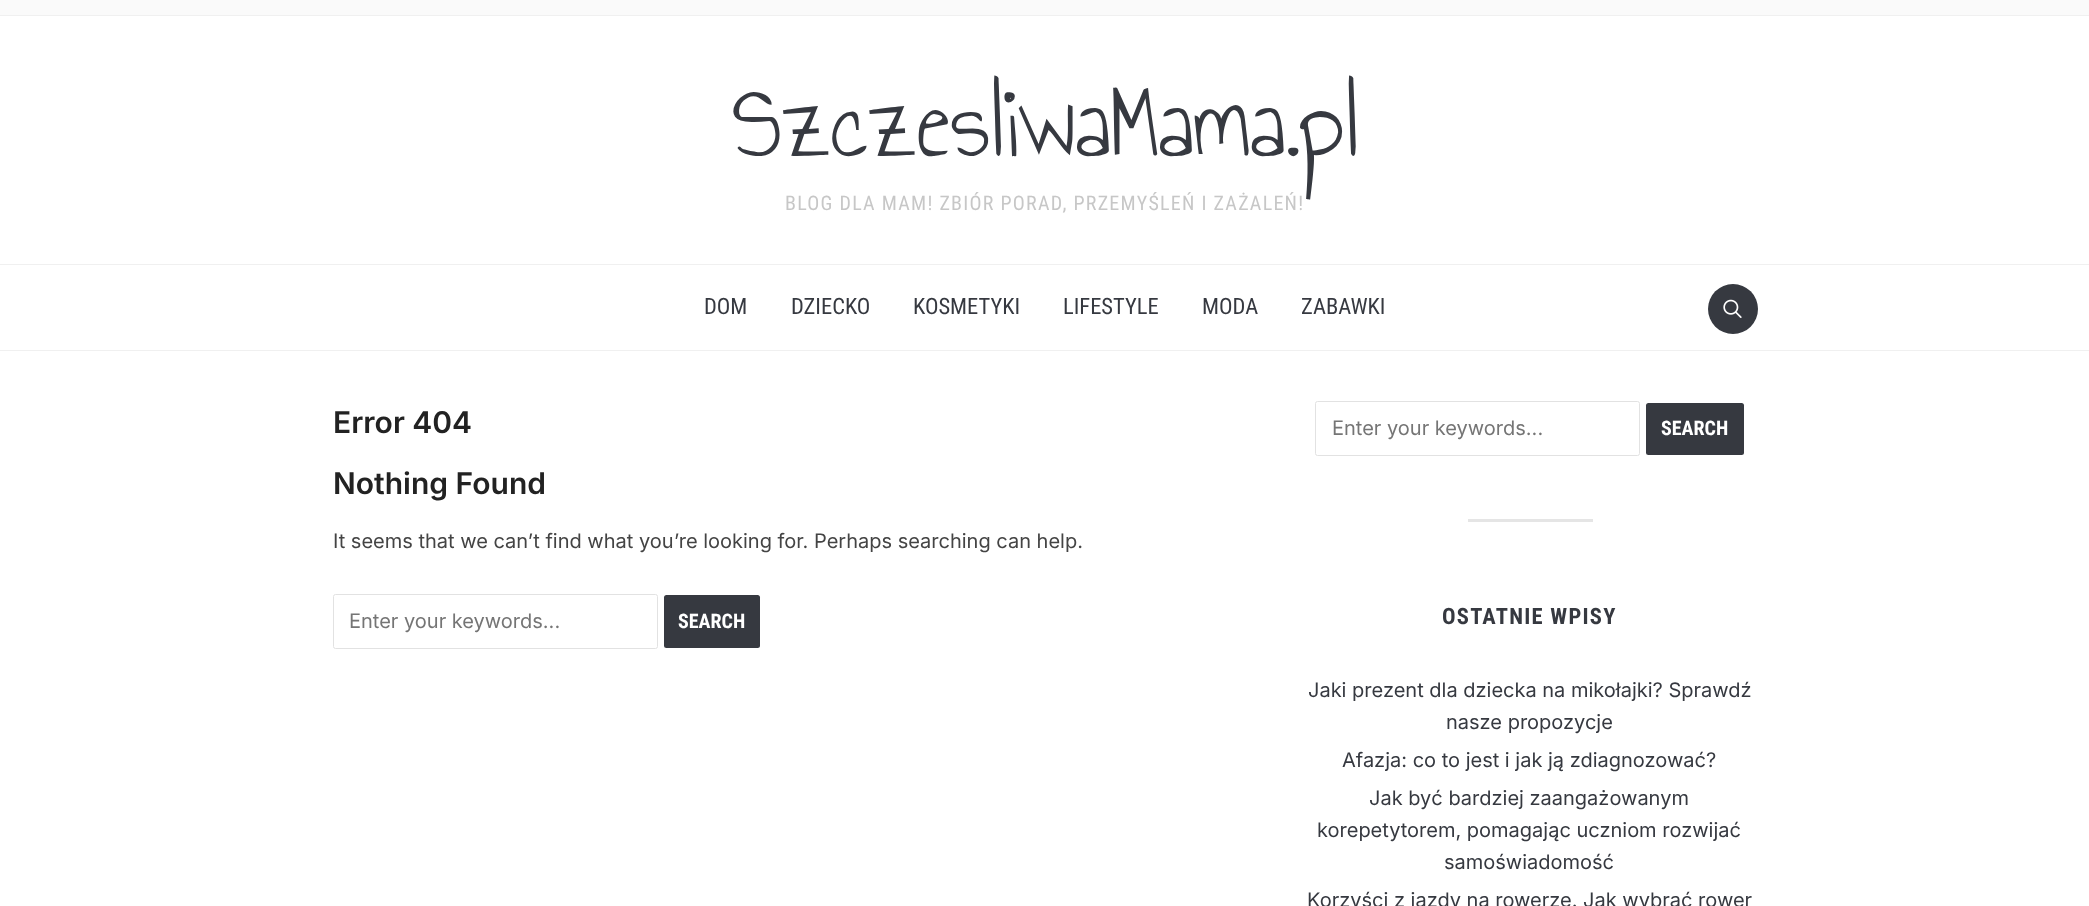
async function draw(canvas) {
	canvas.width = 2089;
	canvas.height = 906;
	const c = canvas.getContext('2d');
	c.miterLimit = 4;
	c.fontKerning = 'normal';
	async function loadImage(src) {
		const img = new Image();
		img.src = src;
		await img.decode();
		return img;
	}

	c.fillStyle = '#fff';
	c.fillRect(0, 0, 2089, 906);
	c.fillStyle = '#fafafa';
	c.fillRect(0, 0, 2089, 15);
	c.fillStyle = '#f0f0f0';
	c.fillRect(0, 15, 2089, 1);
	c.letterSpacing = '-1.25px';
	c.font = '106.25px Annie Use Your Telescope';
	c.fillStyle = '#363940';
	c.fillText('SzczesliwaMama.pl', 732, 156);
	c.letterSpacing = '1.25px';
	c.font = '20px Roboto Condensed';
	c.fillStyle = '#c7c7c7';
	c.fillText('BLOG DLA MAM! ZBIÓR PORAD, PRZEMYŚLEŃ I ZAŻALEŃ!', 785, 210);
	c.fillStyle = '#f0f0f0';
	c.fillRect(0, 264, 2089, 1);
	c.fillRect(0, 350, 2089, 1);
	c.letterSpacing = '0px';
	c.font = '22.5px Roboto Condensed';
	c.fillStyle = '#363940';
	for (const [text, x, y] of [
		['DOM', 704, 314],
		['DZIECKO', 791, 314],
		['KOSMETYKI', 913, 314],
		['LIFESTYLE', 1063, 314],
		['MODA', 1202, 314],
		['ZABAWKI', 1301, 314],
	]) {
		c.fillText(text, x, y);
	}
	c.beginPath();
	c.arc(1733, 309, 25, 0, 2 * Math.PI);
	c.fill();
	c.drawImage(await loadImage('img1.png'), 1723, 299, 19, 19);
	c.font = '600 30px Inter';
	c.fillStyle = '#222';
	c.fillText('Error 404', 333, 433);
	c.fillText('Nothing Found', 333, 494);
	c.font = '20px Inter';
	c.fillStyle = '#444';
	c.fillText('It seems that we can’t find what you’re looking for. Perhaps searching can help.', 333, 548);
	c.beginPath();
	c.roundRect(333.5, 594.5, 324, 54, 2);
	c.strokeStyle = '#e2e2e2';
	c.stroke();
	c.fillStyle = '#757575';
	c.fillText('Enter your keywords...', 349, 628);
	c.fillStyle = '#363940';
	c.beginPath();
	c.roundRect(664, 595, 96, 53, 2.5);
	c.fill();
	c.font = 'bold 20px Roboto Condensed';
	c.fillStyle = '#fff';
	c.fillText('SEARCH', 678, 628);
	c.beginPath();
	c.roundRect(1315.5, 401.5, 324, 54, 2);
	c.stroke();
	c.font = '20px Inter';
	c.fillStyle = '#757575';
	c.fillText('Enter your keywords...', 1332, 435);
	c.fillStyle = '#363940';
	c.beginPath();
	c.roundRect(1646, 403, 98, 52, 2.5);
	c.fill();
	c.font = 'bold 20px Roboto Condensed';
	c.fillStyle = '#fff';
	c.fillText('SEARCH', 1661, 435);
	c.fillStyle = '#e5e5e5';
	c.fillRect(1468, 519, 125, 3);
	c.letterSpacing = '1.25px';
	c.font = 'bold 22.5px Roboto Condensed';
	c.fillStyle = '#363940';
	c.fillText('OSTATNIE WPISY', 1442, 624);
	c.letterSpacing = '0px';
	c.font = '20px Inter';
	for (const [text, x, y] of [
		['Jaki prezent dla dziecka na mikołajki? Sprawdź', 1308, 697],
		['nasze propozycje', 1446, 729],
		['Afazja: co to jest i jak ją zdiagnozować?', 1342, 767],
		['Jak być bardziej zaangażowanym', 1369, 805],
		['korepetytorem, pomagając uczniom rozwijać', 1317, 837],
		['samoświadomość', 1444, 869],
		['Korzyści z jazdy na rowerze. Jak wybrać rower', 1307, 907],
	]) {
		c.fillText(text, x, y);
	}
}

draw(document.querySelector('canvas'));
